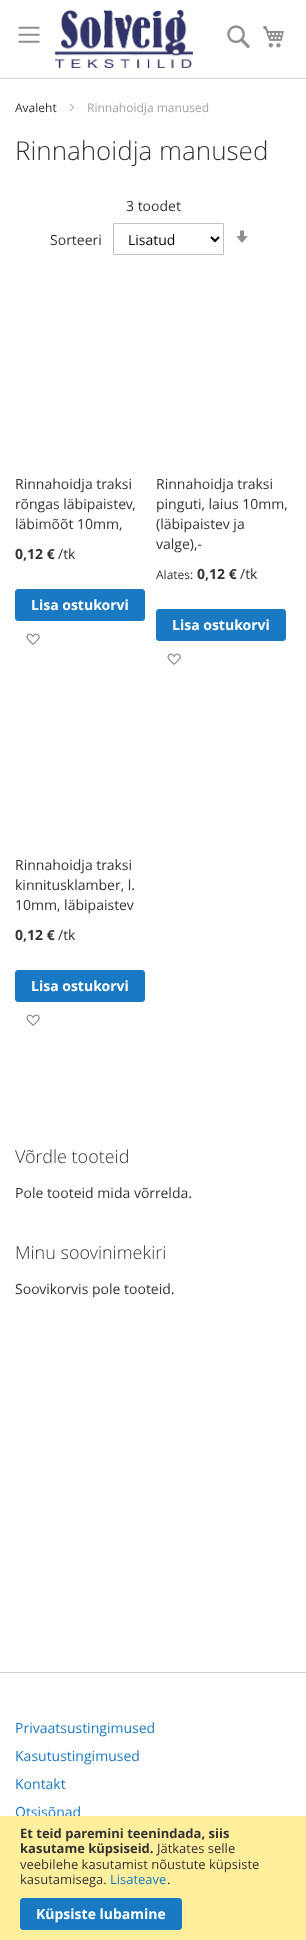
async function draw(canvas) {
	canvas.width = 306;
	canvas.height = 1940;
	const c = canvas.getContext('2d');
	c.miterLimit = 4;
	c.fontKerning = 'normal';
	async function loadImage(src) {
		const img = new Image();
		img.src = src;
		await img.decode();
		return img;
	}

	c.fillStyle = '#fff';
	c.fillRect(0, 0, 306, 1940);
	c.fillStyle = '#d1d1d1';
	c.fillRect(0, 78, 306, 1);
	c.drawImage(await loadImage('img1.png'), 18, 26, 22, 17);
	c.drawImage(await loadImage('img2.png'), 55, 10, 138, 58);
	c.drawImage(await loadImage('img3.png'), 227, 25, 23, 23);
	c.drawImage(await loadImage('img4.png'), 263, 25, 21, 23);
	c.font = '12px Open Sans';
	c.fillStyle = '#333';
	c.fillText('Avaleht', 15, 112);
	c.drawImage(await loadImage('img5.png'), 69, 103, 6, 9);
	c.fillStyle = '#a3a3a3';
	c.fillText('Rinnahoidja manused', 87, 112);
	c.font = '300 26px Open Sans';
	c.fillStyle = '#333';
	c.fillText('Rinnahoidja manused', 15, 160);
	c.font = '14px Open Sans';
	c.fillText('3 toodet', 126, 211);
	c.fillText('Sorteeri', 50, 245);
	c.beginPath();
	c.roundRect(113.5, 223.5, 110, 31, 0.5);
	c.strokeStyle = '#c2c2c2';
	c.stroke();
	c.beginPath();
	c.moveTo(211, 237);
	c.lineTo(215, 241);
	c.lineTo(219, 237);
	c.strokeStyle = '#000';
	c.lineWidth = 2;
	c.stroke();
	c.fillStyle = '#000';
	c.fillText('Lisatud', 128, 245);
	c.drawImage(await loadImage('img6.png'), 236, 230, 12, 13);
	c.fillStyle = '#333';
	for (const [text, x, y] of [
		['Rinnahoidja traksi', 15, 489],
		['rõngas läbipaistev,', 15, 509],
		['läbimõõt 10mm,', 15, 529],
	]) {
		c.fillText(text, x, y);
	}
	c.font = 'bold 14px Open Sans';
	c.fillText('0,12 €', 15, 559);
	c.font = '14px Open Sans';
	c.fillText('/tk', 58, 559);
	c.fillStyle = '#1979c3';
	c.beginPath();
	c.roundRect(15.5, 589.5, 129, 31, 2.5);
	c.fill();
	c.strokeStyle = '#1979c3';
	c.lineWidth = 1;
	c.stroke();
	c.font = 'bold 14px Open Sans';
	c.fillStyle = '#fff';
	c.fillText('Lisa ostukorvi', 31, 610);
	c.drawImage(await loadImage('img7.png'), 26, 633, 14, 12);
	c.font = '14px Open Sans';
	c.fillStyle = '#333';
	for (const [text, x, y] of [
		['Rinnahoidja traksi', 156, 489],
		['pinguti, laius 10mm,', 156, 509],
		['(läbipaistev ja', 156, 529],
		['valge),-', 156, 549],
	]) {
		c.fillText(text, x, y);
	}
	c.font = '12px Open Sans';
	c.fillText('Alates:', 156, 579);
	c.font = 'bold 14px Open Sans';
	c.fillText('0,12 €', 197, 579);
	c.font = '14px Open Sans';
	c.fillText('/tk', 240, 579);
	c.fillStyle = '#1979c3';
	c.beginPath();
	c.roundRect(156.5, 609.5, 129, 31, 2.5);
	c.fill();
	c.stroke();
	c.font = 'bold 14px Open Sans';
	c.fillStyle = '#fff';
	c.fillText('Lisa ostukorvi', 172, 630);
	c.drawImage(await loadImage('img7.png'), 167, 653, 14, 12);
	c.font = '14px Open Sans';
	c.fillStyle = '#333';
	for (const [text, x, y] of [
		['Rinnahoidja traksi', 15, 870],
		['kinnitusklamber, l.', 15, 890],
		['10mm, läbipaistev', 15, 910],
	]) {
		c.fillText(text, x, y);
	}
	c.font = 'bold 14px Open Sans';
	c.fillText('0,12 €', 15, 940);
	c.font = '14px Open Sans';
	c.fillText('/tk', 58, 940);
	c.fillStyle = '#1979c3';
	c.beginPath();
	c.roundRect(15.5, 970.5, 129, 31, 2.5);
	c.fill();
	c.stroke();
	c.font = 'bold 14px Open Sans';
	c.fillStyle = '#fff';
	c.fillText('Lisa ostukorvi', 31, 991);
	c.drawImage(await loadImage('img7.png'), 26, 1014, 14, 12);
	c.font = '300 18px Open Sans';
	c.fillStyle = '#333';
	c.fillText('Võrdle tooteid', 15, 1163);
	c.font = '14px Open Sans';
	c.fillText('Pole tooteid mida võrrelda.', 15, 1198);
	c.font = '300 18px Open Sans';
	c.fillText('Minu soovinimekiri', 15, 1259);
	c.font = '14px Open Sans';
	c.fillText('Soovikorvis pole tooteid.', 15, 1294);
	c.fillStyle = '#d1d1d1';
	c.fillRect(0, 1672, 306, 1);
	c.fillStyle = '#1979c3';
	for (const [text, x, y] of [
		['Privaatsustingimused', 15, 1733],
		['Kasutustingimused', 15, 1761],
		['Kontakt', 15, 1789],
		['Otsisõnad', 15, 1817],
	]) {
		c.fillText(text, x, y);
	}
	c.fillStyle = '#ffee9c';
	c.fillRect(0, 1816, 306, 124);
	c.font = 'bold 13px Open Sans';
	c.fillStyle = '#333';
	c.fillText('Et teid paremini teenindada, siis', 20, 1838);
	c.fillText('kasutame küpsiseid.', 20, 1853);
	c.font = '13px Open Sans';
	for (const [text, x, y] of [
		['Jätkates selle', 157, 1853],
		['veebilehe kasutamist nõustute küpsiste', 20, 1869],
		['kasutamisega.', 20, 1884],
	]) {
		c.fillText(text, x, y);
	}
	c.fillStyle = '#1979c3';
	c.fillText('Lisateave', 110, 1884);
	c.fillStyle = '#333';
	c.fillText('.', 167, 1884);
	c.fillStyle = '#1979c3';
	c.beginPath();
	c.roundRect(20.5, 1898.5, 161, 31, 2.5);
	c.fill();
	c.stroke();
	c.font = 'bold 14px Open Sans';
	c.fillStyle = '#fff';
	c.fillText('Küpsiste lubamine', 36, 1919);
}

draw(document.querySelector('canvas'));
